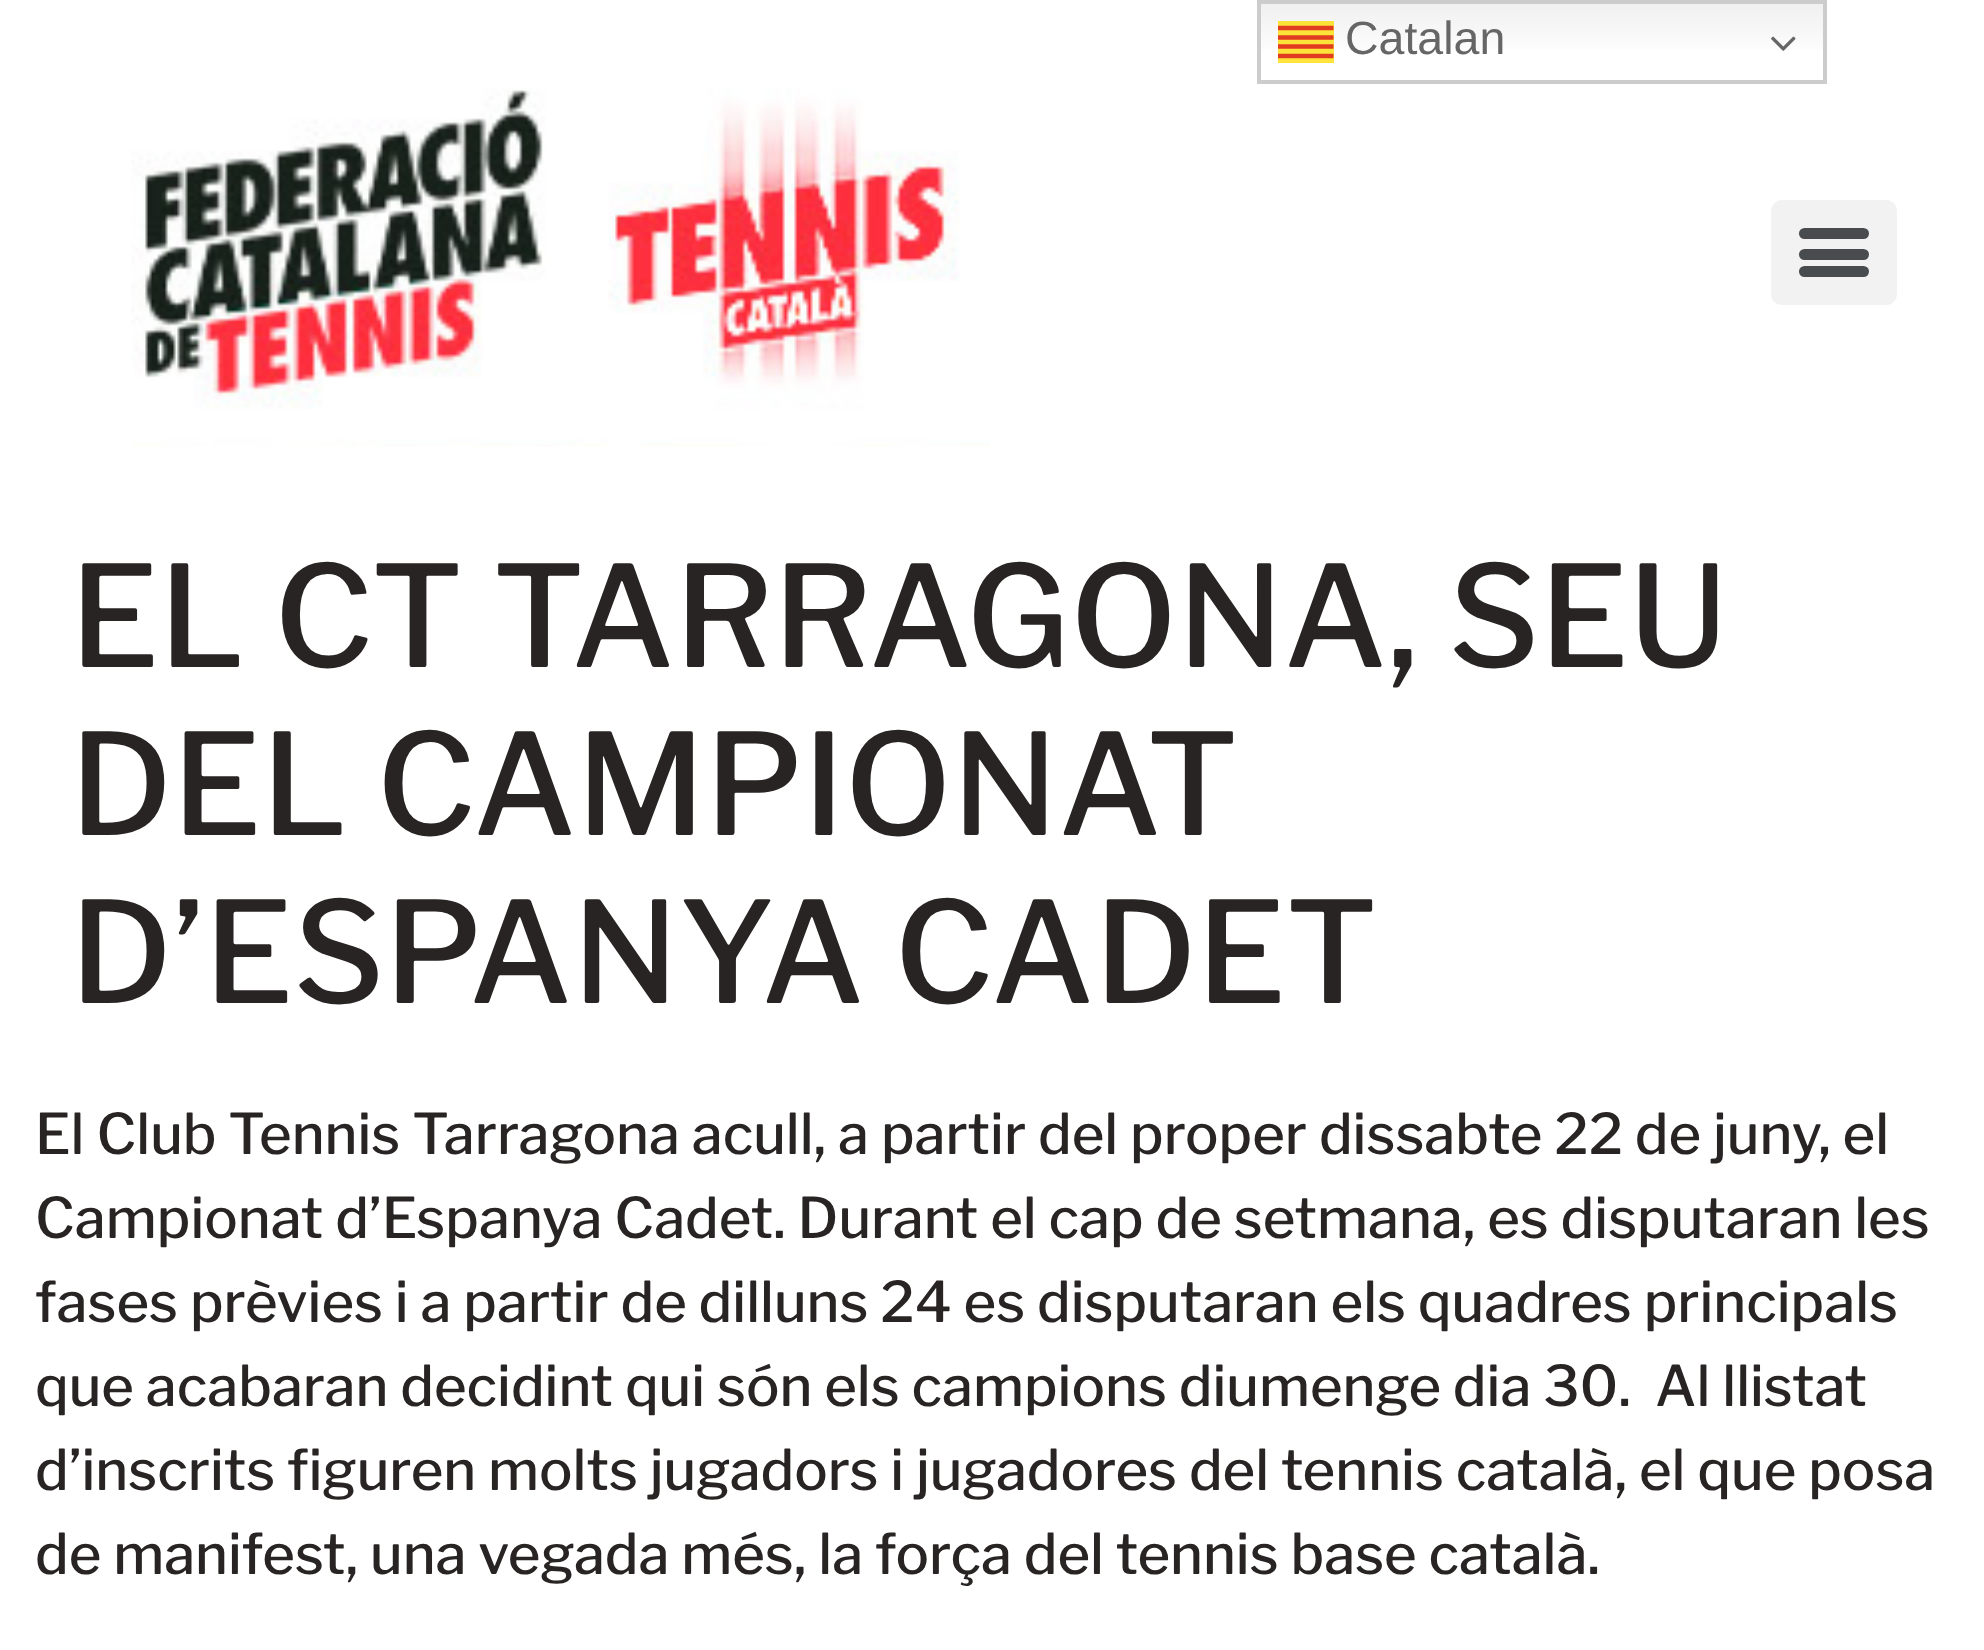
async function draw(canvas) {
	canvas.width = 1984;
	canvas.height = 1650;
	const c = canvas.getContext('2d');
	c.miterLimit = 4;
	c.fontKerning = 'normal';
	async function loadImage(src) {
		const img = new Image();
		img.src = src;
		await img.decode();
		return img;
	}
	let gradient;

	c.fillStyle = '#fff';
	c.fillRect(0, 0, 1984, 1650);
	gradient = c.createLinearGradient(1542, 0, 1542, 84);
	gradient.addColorStop(0, '#efefef');
	gradient.addColorStop(0.7, '#fff');
	c.fillStyle = gradient;
	c.fillRect(1261, 4, 562, 46);
	gradient = c.createLinearGradient(1542, 0, 1542, 84);
	gradient.addColorStop(0, '#f9e137');
	gradient.addColorStop(0.7, '#fde43a');
	c.fillStyle = gradient;
	c.fillRect(1278, 21, 56, 42);
	c.strokeStyle = '#ccc';
	c.lineWidth = 4;
	c.strokeRect(1259, 2, 566, 80);
	c.save();
	c.beginPath();
	c.rect(1278, 14, 56, 56);
	c.clip();
	c.beginPath();
	c.moveTo(1277.5, 28);
	c.lineTo(1333.5, 28);
	c.moveTo(1333.5, 37.5);
	c.lineTo(1277.5, 37.5);
	c.moveTo(1277.5, 46.5);
	c.lineTo(1333.5, 46.5);
	c.moveTo(1333.5, 56);
	c.lineTo(1277.5, 56);
	c.strokeStyle = '#e13c20';
	c.lineWidth = 4.4;
	c.stroke();
	c.restore();
	c.font = '46.5px Liberation Sans';
	c.fillStyle = '#666';
	c.fillText('Catalan', 1345, 54);
	c.drawImage(await loadImage('img1.png'), 1771, 36, 25, 15);
	c.drawImage(await loadImage('img2.png'), 131, 88, 859, 359);
	c.fillStyle = '#f2f2f2';
	c.beginPath();
	c.roundRect(1771, 200, 126, 105, 11);
	c.fill();
	c.fillStyle = '#494c4f';
	c.beginPath();
	c.roundRect(1799, 249, 70, 11, 5.5);
	c.fill();
	c.beginPath();
	c.roundRect(1799, 228, 70, 11, 5.5);
	c.fill();
	c.beginPath();
	c.roundRect(1799, 266, 70, 11, 5.5);
	c.fill();
	c.font = '500 140px Libre Franklin';
	c.fillStyle = '#292424';
	for (const [text, x, y] of [
		['EL CT TARRAGONA, SEU', 70, 667],
		['DEL CAMPIONAT', 70, 835],
		['D’ESPANYA CADET', 70, 1003],
	]) {
		c.fillText(text, x, y);
	}
	c.font = '500 56px Libre Franklin';
	for (const [text, x, y] of [
		['El Club Tennis Tarragona acull, a partir del proper dissabte 22 de juny, el', 35, 1154],
		['Campionat d’Espanya Cadet. Durant el cap de setmana, es disputaran les', 35, 1238],
		['fases prèvies i a partir de dilluns 24 es disputaran els quadres principals', 35, 1322],
		['que acabaran decidint qui són els campions diumenge dia 30.', 35, 1406],
		['Al llistat', 1655, 1406],
		['d’inscrits figuren molts jugadors i jugadores del tennis català, el que posa', 35, 1490],
		['de manifest, una vegada més, la força del tennis base català.', 35, 1574],
	]) {
		c.fillText(text, x, y);
	}
}

draw(document.querySelector('canvas'));
